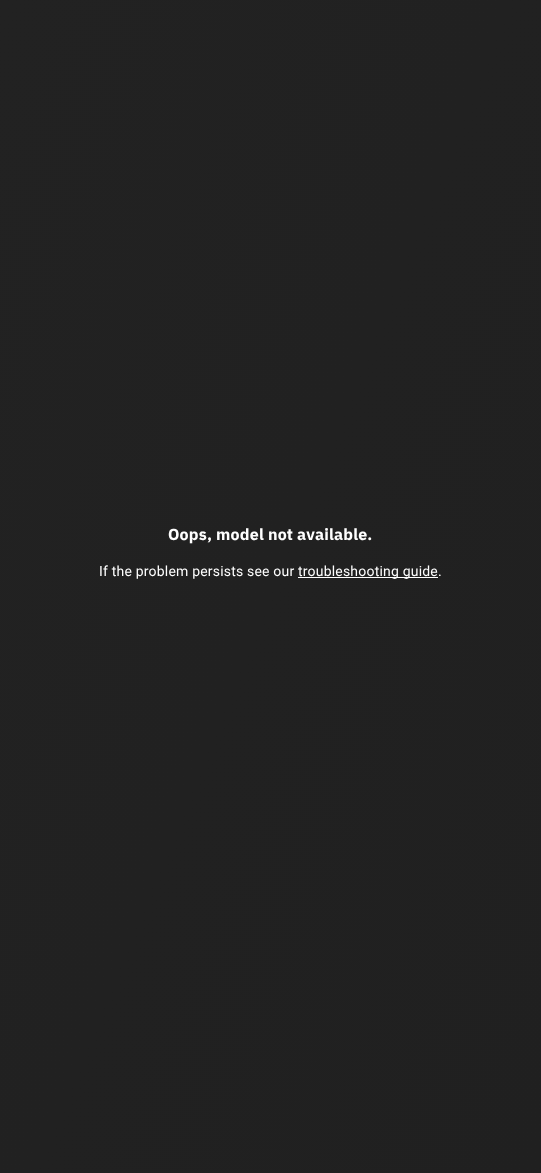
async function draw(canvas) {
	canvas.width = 541;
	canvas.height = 1173;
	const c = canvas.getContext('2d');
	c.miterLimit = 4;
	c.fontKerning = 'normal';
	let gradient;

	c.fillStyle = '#fff';
	c.fillRect(0, 0, 541, 1173);
	gradient = c.createLinearGradient(-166, 410, 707, 763);
	gradient.addColorStop(0, '#222');
	gradient.addColorStop(1, '#202020');
	c.fillStyle = gradient;
	c.fillRect(0, 0, 541, 1173);
	c.letterSpacing = '0.2px';
	c.font = 'bold 16px IBM Plex Sans';
	c.fillStyle = '#fff';
	c.fillText('Oops, model not available.', 168, 540);
	c.font = '14px Roboto';
	c.fillText('If the problem persists see our', 99, 576);
	c.fillRect(298, 577, 140, 1);
	c.fillText('troubleshooting guide.', 298, 576);
}

draw(document.querySelector('canvas'));
